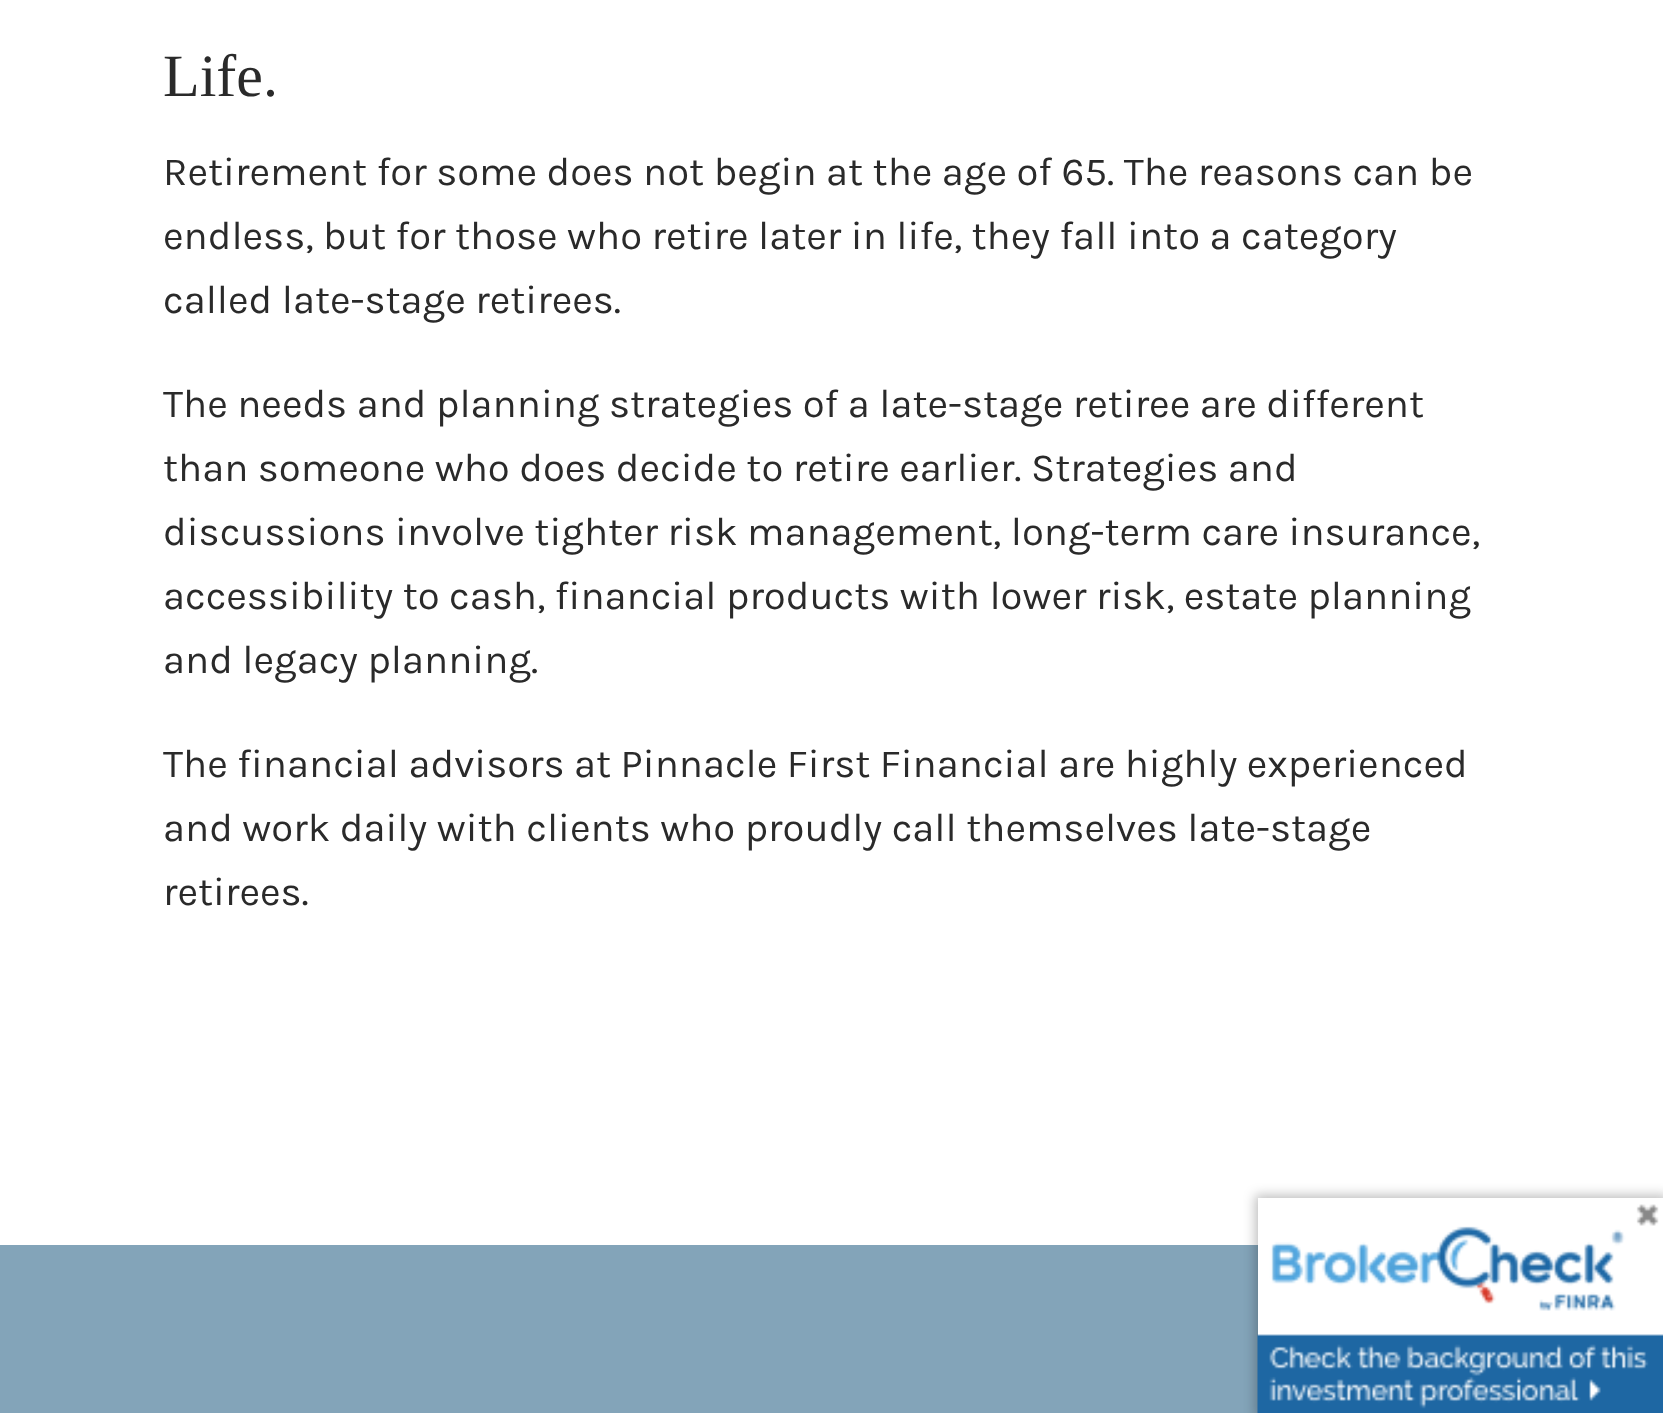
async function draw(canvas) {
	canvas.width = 1663;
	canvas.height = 1413;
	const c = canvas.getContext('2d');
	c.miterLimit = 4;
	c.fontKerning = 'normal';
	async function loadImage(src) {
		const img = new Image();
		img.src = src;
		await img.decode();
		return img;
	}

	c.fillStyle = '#fff';
	c.fillRect(0, 0, 1663, 1413);
	c.font = '60px Liberation Serif';
	c.fillStyle = '#2a2a2a';
	c.fillText('Life.', 163, 96);
	c.font = '40px Karla';
	for (const [text, x, y] of [
		['Retirement for some does not begin at the age of 65. The reasons can be', 163, 185],
		['endless, but for those who retire later in life, they fall into a category', 163, 249],
		['called late-stage retirees.', 163, 313],
		['The needs and planning strategies of a late-stage retiree are different', 163, 417],
		['than someone who does decide to retire earlier. Strategies and', 163, 481],
		['discussions involve tighter risk management, long-term care insurance,', 163, 545],
		['accessibility to cash, financial products with lower risk, estate planning', 163, 609],
		['and legacy planning.', 163, 673],
		['The financial advisors at Pinnacle First Financial are highly experienced', 163, 777],
		['and work daily with clients who proudly call themselves late-stage', 163, 841],
		['retirees.', 163, 905],
	]) {
		c.fillText(text, x, y);
	}
	c.fillStyle = '#83a4b9';
	c.fillRect(0, 1245, 1258, 168);
	c.save();
	c.beginPath();
	c.moveTo(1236, 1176);
	c.lineTo(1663, 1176);
	c.lineTo(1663, 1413);
	c.lineTo(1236, 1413);
	c.closePath();
	c.moveTo(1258, 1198);
	c.lineTo(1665, 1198);
	c.lineTo(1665, 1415);
	c.lineTo(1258, 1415);
	c.closePath();
	c.clip('evenodd');
	c.fillStyle = '#00000040';
	c.filter = 'blur(6px)';
	c.beginPath();
	c.rect(1255, 1195, 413, 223);
	c.fill();
	c.filter = 'none';
	c.restore();
	c.drawImage(await loadImage('img1.png'), 1257, 1204, 406, 209);
}

draw(document.querySelector('canvas'));
